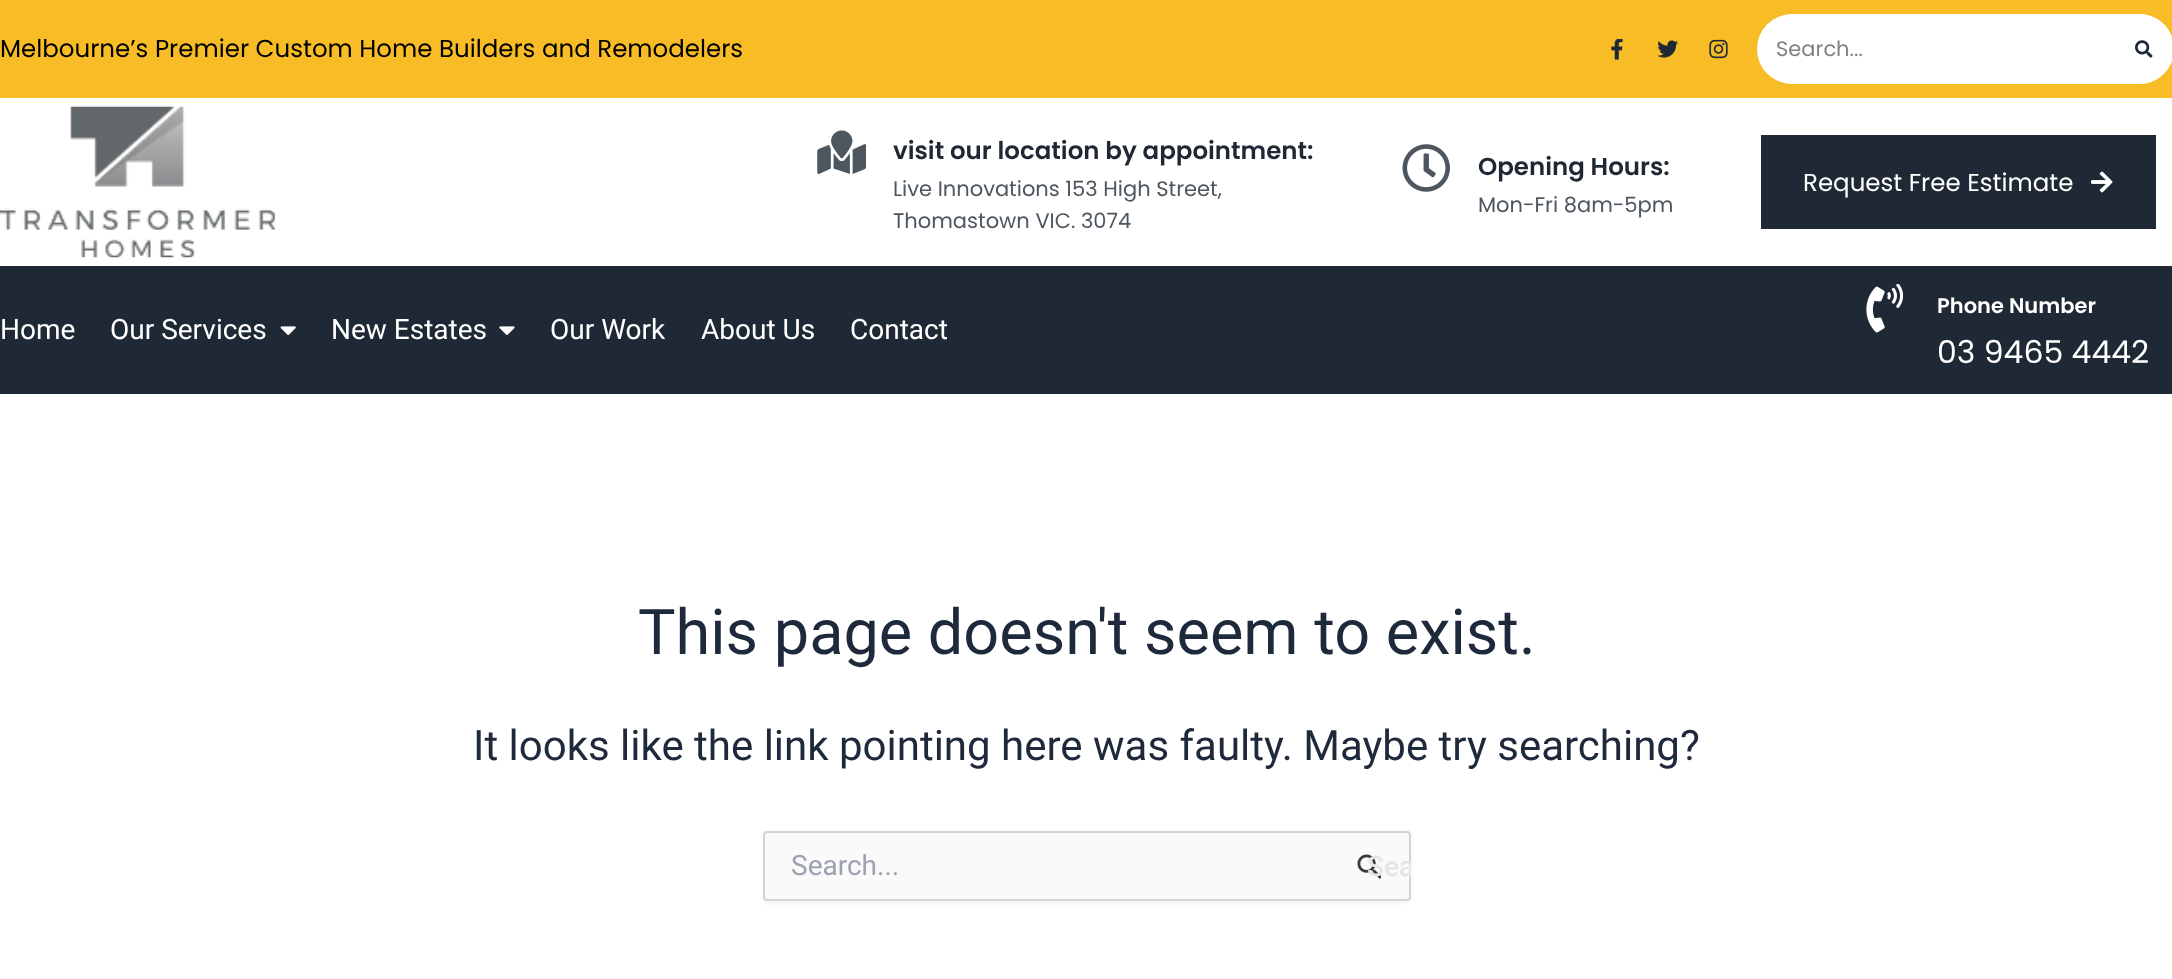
async function draw(canvas) {
	canvas.width = 2172;
	canvas.height = 979;
	const c = canvas.getContext('2d');
	c.miterLimit = 4;
	c.fontKerning = 'normal';
	async function loadImage(src) {
		const img = new Image();
		img.src = src;
		await img.decode();
		return img;
	}

	c.fillStyle = '#fff';
	c.fillRect(0, 0, 2172, 979);
	c.fillStyle = '#f8bc26';
	c.fillRect(0, 0, 2172, 98);
	c.font = '24.5px Poppins';
	c.fillStyle = '#000';
	c.fillText('Melbourne’s Premier Custom Home Builders and Remodelers', 0, 57);
	c.drawImage(await loadImage('img1.png'), 1611, 39, 12, 21);
	c.drawImage(await loadImage('img2.png'), 1657, 40, 21, 18);
	c.drawImage(await loadImage('img3.png'), 1709, 39, 19, 20);
	c.fillStyle = '#fff';
	c.beginPath();
	c.roundRect(1757, 14, 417, 70, 35);
	c.fill();
	c.font = '21px Poppins';
	c.fillStyle = '#828282';
	c.fillText('Search...', 1776, 56);
	c.fillStyle = '#fff';
	c.beginPath();
	c.moveTo(2114, 14);
	c.lineTo(2139, 14);
	c.bezierCurveTo(2158.5, 14, 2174, 29.5, 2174, 49);
	c.bezierCurveTo(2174, 68.5, 2158.5, 84, 2139, 84);
	c.lineTo(2114, 84);
	c.closePath();
	c.fill();
	c.drawImage(await loadImage('img4.png'), 2135, 40, 18, 18);
	c.drawImage(await loadImage('img5.png'), 0, 106, 275, 152);
	c.drawImage(await loadImage('img6.png'), 817, 130, 49, 44);
	c.font = '600 24.5px Poppins';
	c.fillStyle = '#1f2935';
	c.fillText('visit our location by appointment:', 893, 159);
	c.font = '21px Poppins';
	c.fillStyle = '#4e565f';
	c.fillText('Live Innovations 153 High Street,', 893, 196);
	c.fillText('Thomastown VIC. 3074', 893, 228);
	c.drawImage(await loadImage('img7.png'), 1402, 144, 48, 48);
	c.font = '600 24.5px Poppins';
	c.fillStyle = '#1f2935';
	c.fillText('Opening Hours:', 1478, 175);
	c.font = '21px Poppins';
	c.fillStyle = '#4e565f';
	c.fillText('Mon-Fri 8am-5pm', 1478, 212);
	c.fillStyle = '#1f2935';
	c.fillRect(1761, 135, 395, 94);
	c.font = '24.5px Poppins';
	c.fillStyle = '#fff';
	c.fillText('Request Free Estimate', 1803, 191);
	c.drawImage(await loadImage('img8.png'), 2091, 171, 22, 22);
	c.fillStyle = '#1f2935';
	c.fillRect(0, 266, 2172, 128);
	c.font = '28px Roboto';
	c.fillStyle = '#fff';
	c.fillText('Home', 0, 339);
	c.fillText('Our Services', 110, 339);
	c.drawImage(await loadImage('img9.png'), 280, 326, 16, 9);
	c.fillText('New Estates', 331, 339);
	c.drawImage(await loadImage('img10.png'), 499, 326, 16, 9);
	for (const [text, x, y] of [
		['Our Work', 550, 339],
		['About Us', 701, 339],
		['Contact', 850, 339],
	]) {
		c.fillText(text, x, y);
	}
	c.drawImage(await loadImage('img11.png'), 1866, 284, 38, 49);
	c.font = '600 21px Poppins';
	c.fillText('Phone Number', 1937, 313);
	c.font = '31.5px Poppins';
	c.fillText('03 9465 4442', 1937, 363);
	c.font = '63px Roboto';
	c.fillStyle = '#1e293b';
	c.fillText('This page doesn\'t seem to exist.', 638, 654);
	c.font = '42px Roboto';
	c.fillText('It looks like the link pointing here was faulty. Maybe try searching?', 473, 760);
	c.fillStyle = '#0000000d';
	c.filter = 'blur(2px)';
	c.beginPath();
	c.roundRect(763, 833, 648, 70, 4);
	c.fill();
	c.filter = 'none';
	c.fillStyle = '#fafafa';
	c.beginPath();
	c.roundRect(764, 832, 646, 68, 3);
	c.fill();
	c.strokeStyle = '#d1d5db';
	c.lineWidth = 2;
	c.stroke();
	c.font = '28px Roboto';
	c.fillStyle = '#9ca3af';
	c.fillText('Search...', 791, 875);
	c.drawImage(await loadImage('img12.png'), 1357, 854, 24, 25);
	c.save();
	c.beginPath();
	c.roundRect(1332, 831, 79, 74, 4);
	c.clip();
	c.font = '500 28px Roboto';
	c.fillStyle = '#e5e5e6';
	c.fillText('Sea', 1367, 876);
	c.restore();
}

draw(document.querySelector('canvas'));
